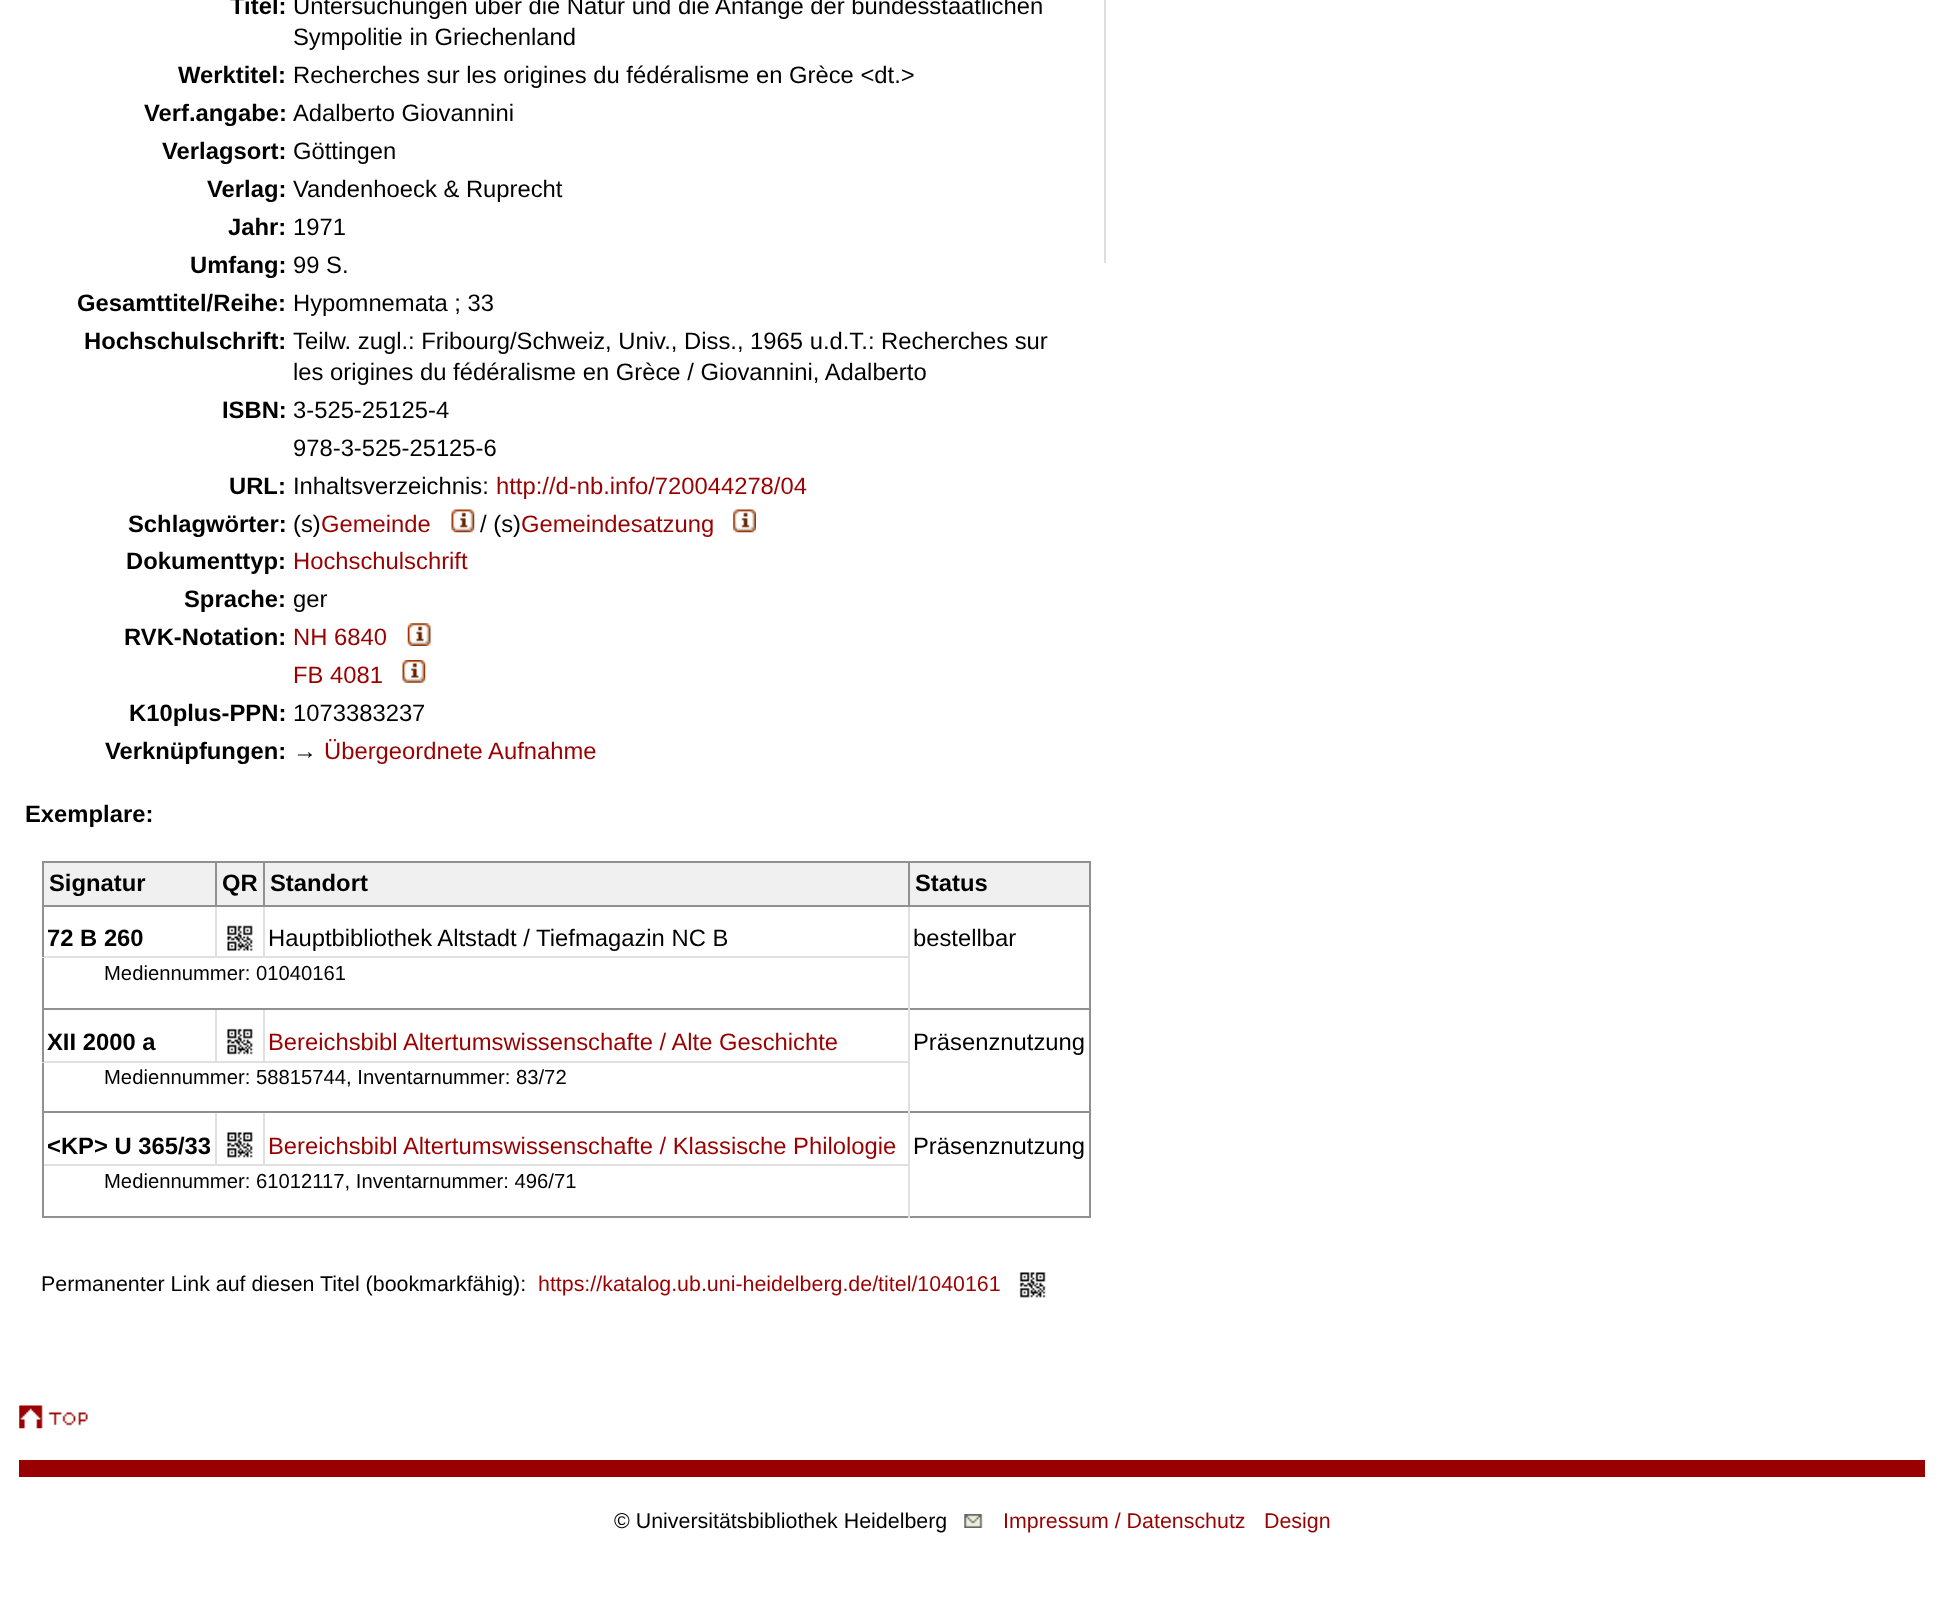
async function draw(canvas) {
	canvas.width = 1944;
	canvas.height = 1607;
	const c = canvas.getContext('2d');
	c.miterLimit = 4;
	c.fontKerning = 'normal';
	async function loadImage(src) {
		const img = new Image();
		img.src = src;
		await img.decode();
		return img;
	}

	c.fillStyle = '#fff';
	c.fillRect(0, 0, 1944, 1607);
	c.font = 'bold 23.8px Liberation Sans';
	c.fillStyle = '#000';
	c.fillText('Titel:', 230, 14);
	c.font = '23.8px Liberation Sans';
	c.fillText('Untersuchungen über die Natur und die Anfänge der bundesstaatlichen', 293, 14);
	c.fillText('Sympolitie in Griechenland', 293, 45);
	c.font = 'bold 23.8px Liberation Sans';
	c.fillText('Werktitel:', 178, 83);
	c.font = '23.8px Liberation Sans';
	c.fillText('Recherches sur les origines du fédéralisme en Grèce <dt.>', 293, 83);
	c.font = 'bold 23.8px Liberation Sans';
	c.fillText('Verf.angabe:', 144, 121);
	c.font = '23.8px Liberation Sans';
	c.fillText('Adalberto Giovannini', 293, 121);
	c.font = 'bold 23.8px Liberation Sans';
	c.fillText('Verlagsort:', 162, 159);
	c.font = '23.8px Liberation Sans';
	c.fillText('Göttingen', 293, 159);
	c.font = 'bold 23.8px Liberation Sans';
	c.fillText('Verlag:', 207, 197);
	c.font = '23.8px Liberation Sans';
	c.fillText('Vandenhoeck & Ruprecht', 293, 197);
	c.font = 'bold 23.8px Liberation Sans';
	c.fillText('Jahr:', 228, 235);
	c.font = '23.8px Liberation Sans';
	c.fillText('1971', 293, 235);
	c.font = 'bold 23.8px Liberation Sans';
	c.fillText('Umfang:', 190, 273);
	c.font = '23.8px Liberation Sans';
	c.fillText('99 S.', 293, 273);
	c.font = 'bold 23.8px Liberation Sans';
	c.fillText('Gesamttitel/Reihe:', 77, 311);
	c.font = '23.8px Liberation Sans';
	c.fillText('Hypomnemata ; 33', 293, 311);
	c.font = 'bold 23.8px Liberation Sans';
	c.fillText('Hochschulschrift:', 84, 349);
	c.font = '23.8px Liberation Sans';
	c.fillText('Teilw. zugl.: Fribourg/Schweiz, Univ., Diss., 1965 u.d.T.: Recherches sur', 293, 349);
	c.fillText('les origines du fédéralisme en Grèce / Giovannini, Adalberto', 293, 380);
	c.font = 'bold 23.8px Liberation Sans';
	c.fillText('ISBN:', 222, 418);
	c.font = '23.8px Liberation Sans';
	c.fillText('3-525-25125-4', 293, 418);
	c.fillText('978-3-525-25125-6', 293, 456);
	c.font = 'bold 23.8px Liberation Sans';
	c.fillText('URL:', 229, 494);
	c.font = '23.8px Liberation Sans';
	c.fillText('Inhaltsverzeichnis:', 293, 494);
	c.fillStyle = '#900';
	c.fillText('http://d-nb.info/720044278/04', 496, 494);
	c.font = 'bold 23.8px Liberation Sans';
	c.fillStyle = '#000';
	c.fillText('Schlagwörter:', 128, 532);
	c.font = '23.8px Liberation Sans';
	c.fillText('(s)', 293, 532);
	c.fillStyle = '#900';
	c.fillText('Gemeinde', 321, 532);
	c.drawImage(await loadImage('img1.png'), 451, 509, 24, 24);
	c.fillStyle = '#000';
	c.fillText('/ (s)', 480, 532);
	c.fillStyle = '#900';
	c.fillText('Gemeindesatzung', 521, 532);
	c.drawImage(await loadImage('img2.png'), 733, 509, 23, 24);
	c.font = 'bold 23.8px Liberation Sans';
	c.fillStyle = '#000';
	c.fillText('Dokumenttyp:', 126, 569);
	c.font = '23.8px Liberation Sans';
	c.fillStyle = '#900';
	c.fillText('Hochschulschrift', 293, 569);
	c.font = 'bold 23.8px Liberation Sans';
	c.fillStyle = '#000';
	c.fillText('Sprache:', 184, 607);
	c.font = '23.8px Liberation Sans';
	c.fillText('ger', 293, 607);
	c.font = 'bold 23.8px Liberation Sans';
	c.fillText('RVK-Notation:', 124, 645);
	c.font = '23.8px Liberation Sans';
	c.fillStyle = '#900';
	c.fillText('NH 6840', 293, 645);
	c.drawImage(await loadImage('img3.png'), 407, 623, 24, 23);
	c.fillText('FB 4081', 293, 683);
	c.drawImage(await loadImage('img4.png'), 402, 660, 24, 23);
	c.font = 'bold 23.8px Liberation Sans';
	c.fillStyle = '#000';
	c.fillText('K10plus-PPN:', 129, 721);
	c.font = '23.8px Liberation Sans';
	c.fillText('1073383237', 293, 721);
	c.font = 'bold 23.8px Liberation Sans';
	c.fillText('Verknüpfungen:', 105, 759);
	c.font = '23.8px Liberation Sans';
	c.fillText('→', 293, 759);
	c.fillStyle = '#900';
	c.fillText('Übergeordnete Aufnahme', 324, 759);
	c.fillStyle = '#dedede';
	c.fillRect(1104, 0, 2, 263);
	c.font = 'bold 23.8px Liberation Sans';
	c.fillStyle = '#000';
	c.fillText('Exemplare:', 25, 822);
	for (const [x, y, w, h, color] of [
		[42, 861, 1048, 2, '#909090'],
		[1089, 861, 2, 44, '#909090'],
		[42, 1216, 1048, 2, '#909090'],
		[42, 861, 2, 44, '#909090'],
		[44, 863, 1045, 42, '#f0f0f0'],
		[217, 956, 693, 2, '#e0e0e0'],
		[215, 1008, 2, 54, '#e0e0e0'],
		[215, 1111, 2, 55, '#e0e0e0'],
		[42, 1164, 2, 54, '#909090'],
		[42, 1164, 175, 2, '#e0e0e0'],
		[42, 1111, 2, 55, '#909090'],
		[217, 1164, 693, 2, '#e0e0e0'],
		[263, 1111, 2, 55, '#e0e0e0'],
		[1089, 905, 2, 313, '#909090'],
		[908, 1111, 2, 107, '#e0e0e0'],
		[42, 1111, 1048, 2, '#909090'],
		[42, 1061, 2, 52, '#909090'],
		[42, 1061, 175, 2, '#e0e0e0'],
		[42, 1008, 2, 54, '#909090'],
		[217, 1061, 693, 2, '#e0e0e0'],
		[263, 1008, 2, 54, '#e0e0e0'],
		[908, 1008, 2, 105, '#e0e0e0'],
		[42, 1008, 1048, 2, '#909090'],
		[908, 905, 2, 105, '#e0e0e0'],
		[908, 905, 182, 2, '#909090'],
		[908, 861, 2, 46, '#909090'],
		[263, 905, 2, 52, '#e0e0e0'],
		[263, 905, 647, 2, '#909090'],
		[263, 861, 2, 46, '#909090'],
		[215, 905, 2, 52, '#e0e0e0'],
		[215, 905, 49, 2, '#909090'],
		[215, 861, 2, 46, '#909090'],
		[42, 956, 2, 54, '#909090'],
		[42, 956, 175, 2, '#e0e0e0'],
		[42, 905, 2, 52, '#909090'],
		[42, 905, 175, 2, '#909090'],
	]) {
		c.fillStyle = color;
		c.fillRect(x, y, w, h);
	}
	c.fillStyle = '#000';
	for (const [text, x, y] of [
		['Signatur', 49, 891],
		['QR', 222, 891],
		['Standort', 270, 891],
		['Status', 915, 891],
		['72 B 260', 47, 946],
	]) {
		c.fillText(text, x, y);
	}
	c.drawImage(await loadImage('img5.png'), 227, 925, 26, 26);
	c.font = '23.8px Liberation Sans';
	c.fillText('Hauptbibliothek Altstadt / Tiefmagazin NC B', 268, 946);
	c.fillText('bestellbar', 913, 946);
	c.font = '20.25px Liberation Sans';
	c.fillText('Mediennummer: 01040161', 104, 980);
	c.font = 'bold 23.8px Liberation Sans';
	c.fillText('XII 2000 a', 47, 1050);
	c.drawImage(await loadImage('img6.png'), 227, 1028, 26, 27);
	c.font = '23.8px Liberation Sans';
	c.fillStyle = '#900';
	c.fillText('Bereichsbibl Altertumswissenschafte / Alte Geschichte', 268, 1050);
	c.fillStyle = '#000';
	c.fillText('Präsenznutzung', 913, 1050);
	c.font = '20.25px Liberation Sans';
	c.fillText('Mediennummer: 58815744, Inventarnummer: 83/72', 104, 1084);
	c.font = 'bold 23.8px Liberation Sans';
	c.fillText('<KP> U 365/33', 47, 1154);
	c.drawImage(await loadImage('img7.png'), 227, 1132, 26, 26);
	c.font = '23.8px Liberation Sans';
	c.fillStyle = '#900';
	c.fillText('Bereichsbibl Altertumswissenschafte / Klassische Philologie', 268, 1154);
	c.fillStyle = '#000';
	c.fillText('Präsenznutzung', 913, 1154);
	c.font = '20.25px Liberation Sans';
	c.fillText('Mediennummer: 61012117, Inventarnummer: 496/71', 104, 1188);
	c.font = '21.4px Liberation Sans';
	c.fillText('Permanenter Link auf diesen Titel (bookmarkfähig):', 41, 1291);
	c.fillStyle = '#900';
	c.fillText('https://katalog.ub.uni-heidelberg.de/titel/1040161', 538, 1291);
	c.drawImage(await loadImage('img8.png'), 1019, 1272, 27, 26);
	c.drawImage(await loadImage('img9.png'), 19, 1405, 69, 24);
	c.fillRect(19, 1460, 1906, 17);
	c.fillStyle = '#000';
	c.fillText('© Universitätsbibliothek Heidelberg', 614, 1528);
	c.drawImage(await loadImage('img10.png'), 964, 1514, 19, 14);
	c.fillStyle = '#900';
	c.fillText('Impressum / Datenschutz', 1003, 1528);
	c.fillText('Design', 1264, 1528);
}

draw(document.querySelector('canvas'));
